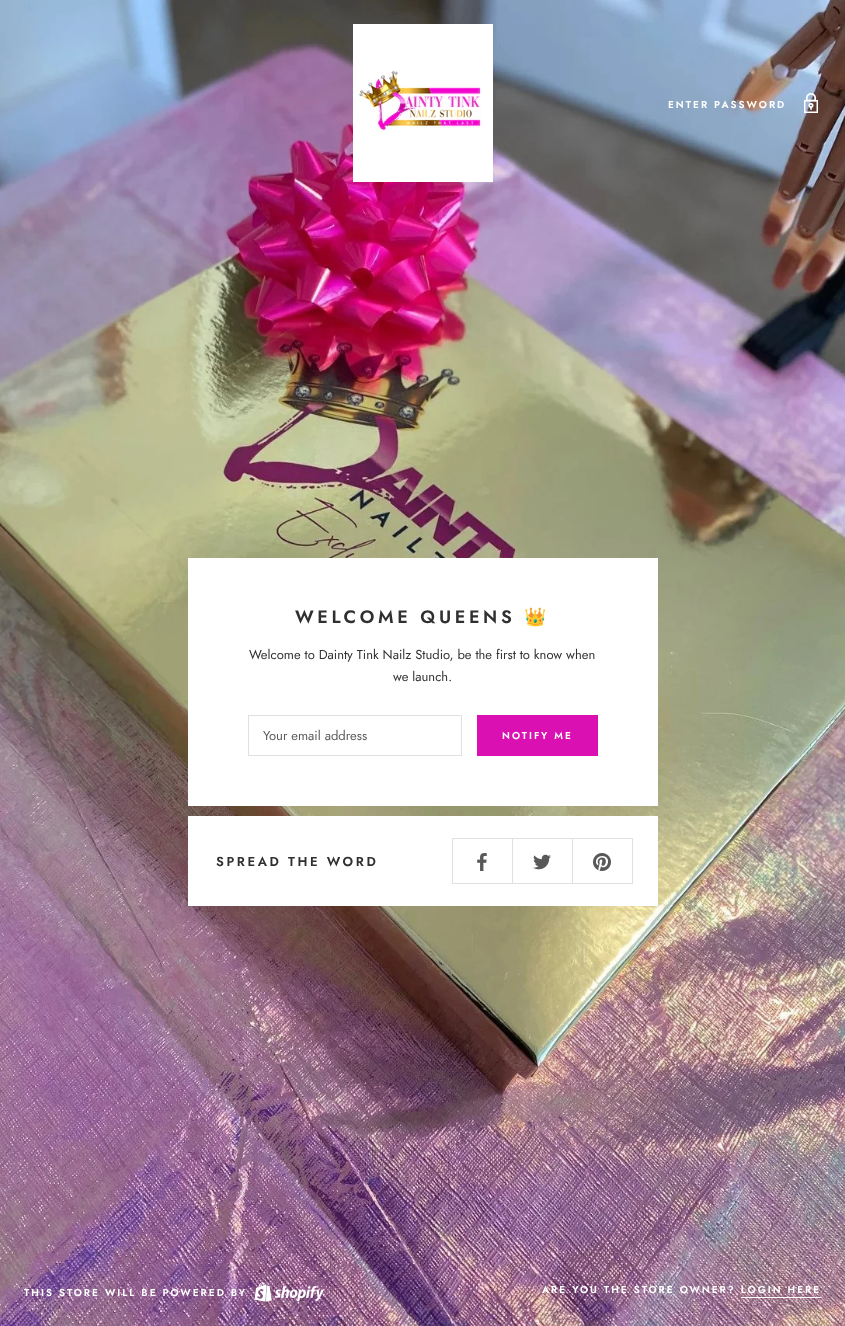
async function draw(canvas) {
	canvas.width = 845;
	canvas.height = 1326;
	const c = canvas.getContext('2d');
	c.miterLimit = 4;
	c.fontKerning = 'normal';
	async function loadImage(src) {
		const img = new Image();
		img.src = src;
		await img.decode();
		return img;
	}

	c.fillStyle = '#fff';
	c.fillRect(0, 0, 845, 1326);
	c.drawImage(await loadImage('img1.png'), 0, 0, 845, 1326);
	c.drawImage(await loadImage('img2.png'), 353, 24, 140, 158);
	c.letterSpacing = '2px';
	c.font = '600 10px Jost';
	c.fillText('ENTER PASSWORD', 668, 108);
	c.drawImage(await loadImage('img3.png'), 804, 93, 14, 20);
	c.fillRect(188, 558, 470, 248);
	c.letterSpacing = '3.6px';
	c.font = '600 18px Jost';
	c.fillStyle = '#303030';
	c.fillText('WELCOME QUEENS', 295, 623);
	c.font = 'bold 18px Noto Color Emoji';
	c.fillText('👑', 524, 623);
	c.letterSpacing = '0px';
	c.font = '13px Jost';
	c.fillText('Welcome to Dainty Tink Nailz Studio, be the first to know when', 249, 659);
	c.fillText('we launch.', 393, 681);
	c.strokeStyle = '#e0e0e0';
	c.strokeRect(248.5, 715.5, 213, 40);
	c.fillStyle = '#595959';
	c.fillText('Your email address', 263, 740);
	c.strokeStyle = '#da10b2';
	c.strokeRect(477.5, 715.5, 120, 40);
	c.fillStyle = '#da10b2';
	c.fillRect(478, 716, 119, 39);
	c.letterSpacing = '2px';
	c.font = '600 10px Jost';
	c.fillStyle = '#fff';
	c.fillText('NOTIFY ME', 502, 739);
	c.fillRect(188, 816, 470, 90);
	c.letterSpacing = '2.6px';
	c.font = '600 13px Jost';
	c.fillStyle = '#303030';
	c.fillText('SPREAD THE WORD', 216, 866);
	for (const [x, y, w, h, color] of [
		[572, 838, 61, 1, '#e0e0e0'],
		[632, 838, 1, 46, '#e0e0e0'],
		[572, 883, 61, 1, '#e0e0e0'],
		[572, 838, 1, 46, '#e0e0e0'],
		[512, 838, 61, 1, '#e0e0e0'],
		[512, 883, 61, 1, '#e0e0e0'],
		[512, 838, 1, 46, '#e0e0e0'],
		[452, 838, 61, 1, '#e0e0e0'],
		[452, 883, 61, 1, '#e0e0e0'],
		[452, 838, 1, 46, '#e0e0e0'],
	]) {
		c.fillStyle = color;
		c.fillRect(x, y, w, h);
	}
	c.drawImage(await loadImage('img4.png'), 477, 853, 10, 18);
	c.drawImage(await loadImage('img5.png'), 533, 854, 18, 16);
	c.drawImage(await loadImage('img6.png'), 593, 853, 18, 18);
	c.letterSpacing = '2px';
	c.font = '600 10px Jost';
	c.fillStyle = '#fff';
	c.fillText('THIS STORE WILL BE POWERED BY', 24, 1296);
	c.drawImage(await loadImage('img7.png'), 254, 1282, 70, 20);
	c.fillText('ARE YOU THE STORE OWNER? LOGIN HERE', 542, 1293);
	c.fillRect(741, 1297, 80, 1);
}

draw(document.querySelector('canvas'));
